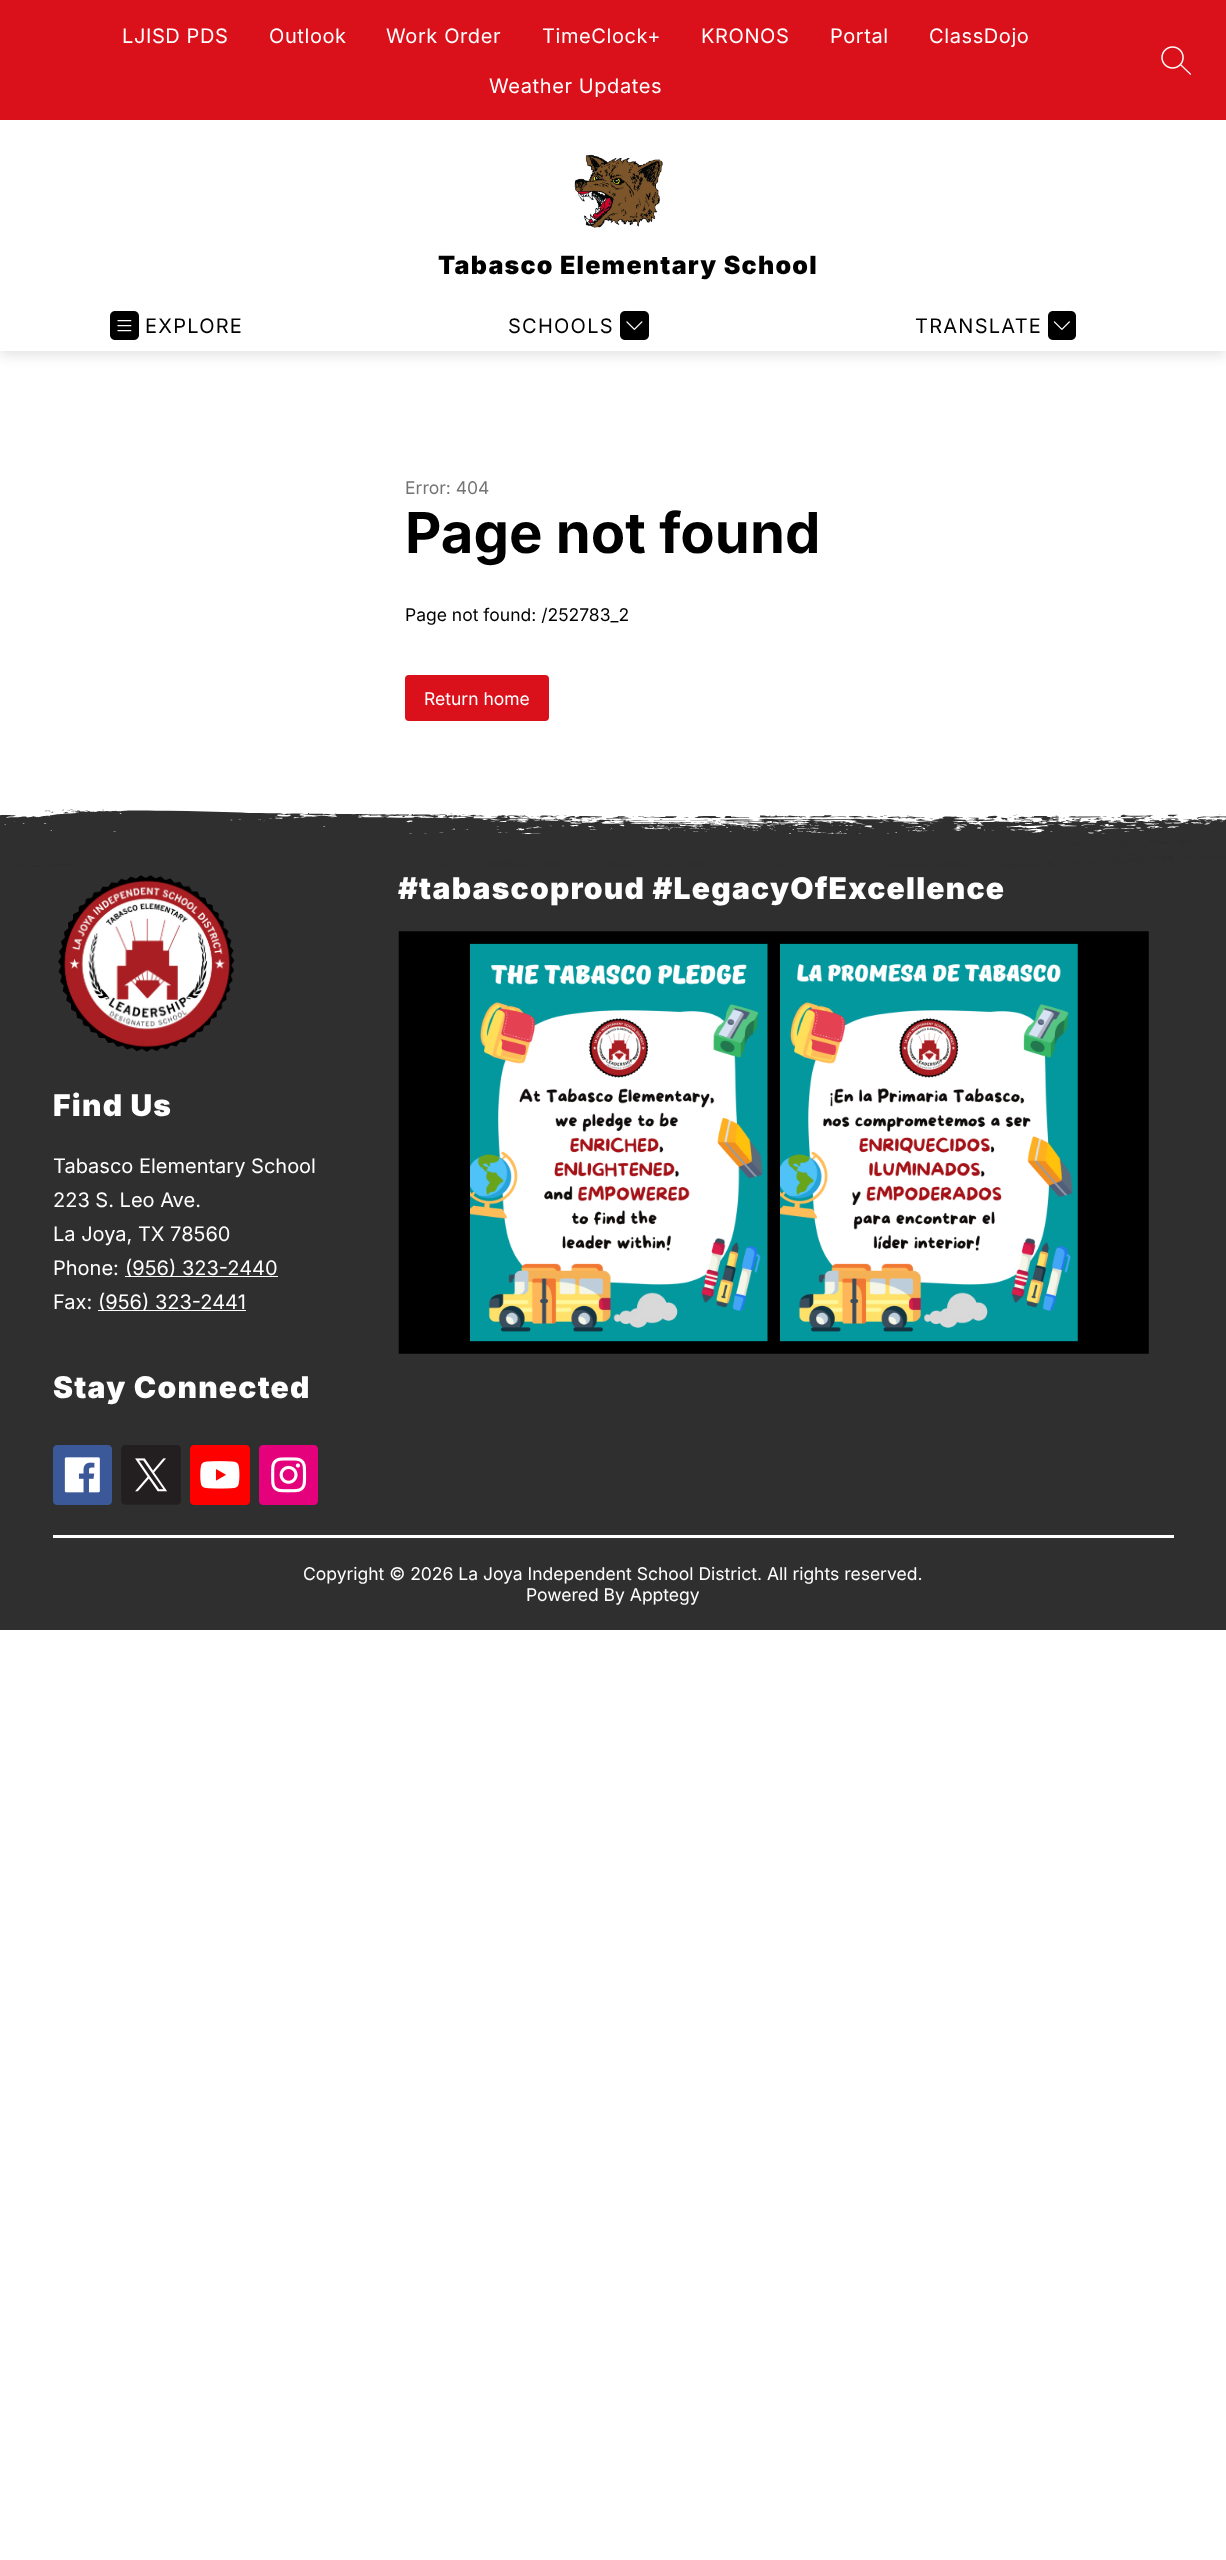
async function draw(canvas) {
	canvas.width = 1226;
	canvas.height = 2560;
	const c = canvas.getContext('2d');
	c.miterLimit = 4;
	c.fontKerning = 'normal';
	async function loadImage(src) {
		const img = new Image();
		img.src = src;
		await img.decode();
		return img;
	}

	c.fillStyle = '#fff';
	c.fillRect(0, 0, 1226, 2560);
	c.fillStyle = '#0000001a';
	c.filter = 'blur(6px)';
	c.beginPath();
	c.rect(0, 5, 1226, 351);
	c.fill();
	c.filter = 'none';
	c.fillStyle = '#da101b';
	c.fillRect(0, 0, 1226, 120);
	c.letterSpacing = '0.6px';
	c.font = '20px Inter';
	c.fillStyle = '#fff';
	for (const [text, x, y] of [
		['LJISD PDS', 122, 43],
		['Outlook', 269, 43],
		['Work Order', 386, 43],
		['TimeClock+', 542, 43],
		['KRONOS', 701, 43],
		['Portal', 830, 43],
		['ClassDojo', 929, 43],
		['Weather Updates', 489, 93],
	]) {
		c.fillText(text, x, y);
	}
	c.drawImage(await loadImage('img1.png'), 1161, 46, 30, 29);
	c.fillRect(0, 120, 1226, 231);
	c.drawImage(await loadImage('img2.png'), 574, 154, 89, 74);
	c.letterSpacing = '1.25px';
	c.font = '900 25px Inter';
	c.fillStyle = '#000';
	c.fillText('Tabasco Elementary School', 438, 274);
	c.drawImage(await loadImage('img3.png'), 110, 311, 29, 29);
	c.font = '20px Inter';
	c.fillText('EXPLORE', 145, 333);
	c.fillText('SCHOOLS', 508, 333);
	c.drawImage(await loadImage('img4.png'), 620, 311, 29, 29);
	c.fillText('TRANSLATE', 915, 333);
	c.drawImage(await loadImage('img5.png'), 1048, 311, 28, 29);
	c.letterSpacing = '0px';
	c.font = '17.5px Inter';
	c.fillStyle = '#747474';
	c.fillText('Error: 404', 405, 494);
	c.font = 'bold 56.25px Inter';
	c.fillStyle = '#000';
	c.fillText('Page not found', 405, 553);
	c.font = '17.5px Inter';
	c.fillText('Page not found: /252783_2', 405, 621);
	c.fillStyle = '#da101b';
	c.beginPath();
	c.roundRect(405, 675, 144, 46, 4);
	c.fill();
	c.fillStyle = '#fff';
	c.fillText('Return home', 424, 705);
	c.fillStyle = '#2f2f2f';
	c.fillRect(0, 834, 1226, 796);
	c.drawImage(await loadImage('img6.png'), 0, 809, 1226, 58);
	c.letterSpacing = '1.25px';
	c.font = '900 30px Inter';
	c.fillStyle = '#fff';
	c.fillText('#tabascoproud #LegacyOfExcellence', 398, 899);
	c.drawImage(await loadImage('img7.png'), 398, 931, 751, 423);
	c.drawImage(await loadImage('img8.png'), 58, 875, 177, 177);
	c.fillText('Find Us', 53, 1116);
	c.letterSpacing = '0px';
	c.font = '20px Inter';
	for (const [text, x, y] of [
		['Tabasco Elementary School', 53, 1173],
		['223 S. Leo Ave.', 53, 1207],
		['La Joya, TX 78560', 53, 1241],
		['Phone:', 53, 1275],
	]) {
		c.fillText(text, x, y);
	}
	c.fillRect(125, 1276, 153, 1);
	c.fillText('(956) 323-2440', 125, 1275);
	c.fillText('Fax:', 53, 1309);
	c.fillRect(98, 1310, 148, 1);
	c.fillText('(956) 323-2441', 98, 1309);
	c.letterSpacing = '1.25px';
	c.font = '900 30px Inter';
	c.fillText('Stay Connected', 53, 1398);
	c.drawImage(await loadImage('img9.png'), 53, 1445, 59, 60);
	c.drawImage(await loadImage('img10.png'), 121, 1445, 60, 60);
	c.drawImage(await loadImage('img11.png'), 190, 1445, 60, 60);
	c.drawImage(await loadImage('img12.png'), 259, 1445, 59, 60);
	c.fillRect(53, 1535, 1121, 3);
	c.letterSpacing = '0px';
	c.font = '17.5px Inter';
	c.fillText('Copyright © 2026 La Joya Independent School District. All rights reserved.', 303, 1580);
	c.fillText('Powered By Apptegy', 526, 1601);
}

draw(document.querySelector('canvas'));
